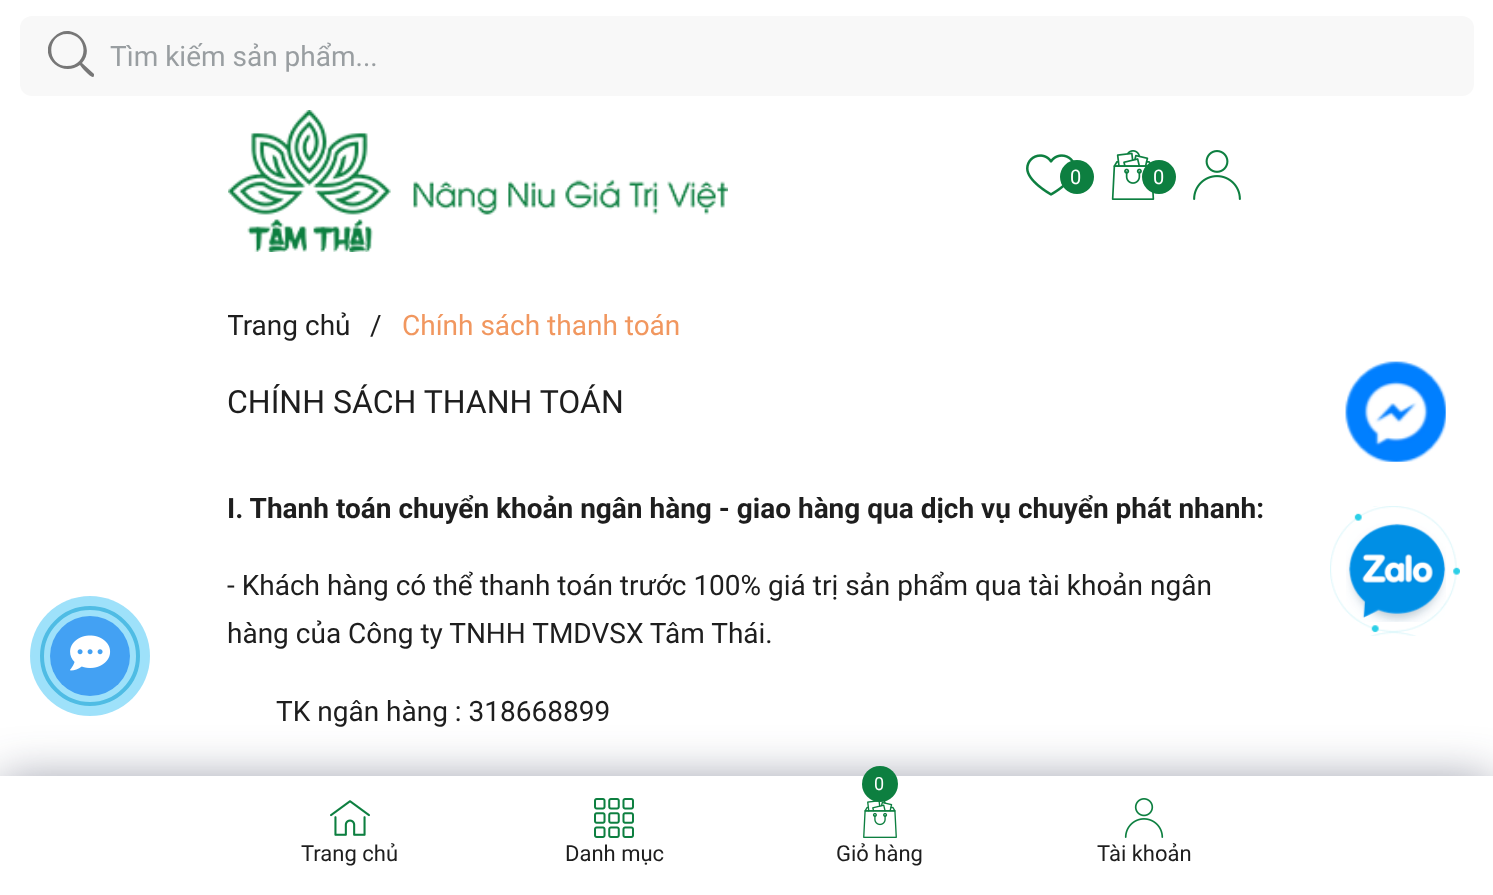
async function draw(canvas) {
	canvas.width = 1493;
	canvas.height = 895;
	const c = canvas.getContext('2d');
	c.miterLimit = 4;
	c.fontKerning = 'normal';
	async function loadImage(src) {
		const img = new Image();
		img.src = src;
		await img.decode();
		return img;
	}

	c.fillStyle = '#fff';
	c.fillRect(0, 0, 1493, 895);
	c.fillStyle = '#f8f8f8';
	c.beginPath();
	c.roundRect(20, 16, 1454, 80, 12);
	c.fill();
	c.save();
	c.beginPath();
	c.rect(48, 24, 46, 60);
	c.clip();
	c.fillStyle = '#777';
	c.beginPath();
	c.moveTo(94, 74);
	c.lineTo(82, 63);
	c.bezierCurveTo(98, 45, 71, 19, 54, 37);
	c.bezierCurveTo(36, 54, 61, 79, 80, 65);
	c.bezierCurveTo(81, 67, 91, 78, 93, 77);
	c.bezierCurveTo(94, 77, 94, 75, 94, 74);
	c.closePath();
	c.moveTo(67, 66);
	c.bezierCurveTo(46, 66, 46, 34, 67, 34);
	c.bezierCurveTo(89, 34, 89, 66, 67, 66);
	c.closePath();
	c.fill();
	c.restore();
	c.font = '28px Roboto';
	c.fillStyle = '#999ea1';
	c.fillText('Tìm kiếm sản phẩm...', 110, 66);
	c.drawImage(await loadImage('img1.png'), 228, 110, 500, 142);
	c.drawImage(await loadImage('img2.png'), 1026, 154, 48, 42);
	c.fillStyle = '#0d7f40';
	c.beginPath();
	c.arc(1077, 177, 17, 0, 2 * Math.PI);
	c.fill();
	c.font = '20px Roboto';
	c.fillStyle = '#fff';
	c.fillText('0', 1070, 184);
	c.drawImage(await loadImage('img3.png'), 1111, 150, 44, 50);
	c.fillStyle = '#0d7f40';
	c.beginPath();
	c.arc(1159, 177, 17, 0, 2 * Math.PI);
	c.fill();
	c.fillStyle = '#fff';
	c.fillText('0', 1153, 184);
	c.drawImage(await loadImage('img4.png'), 1193, 150, 48, 50);
	c.save();
	c.beginPath();
	c.rect(228, 302, 1040, 50);
	c.clip();
	c.font = '28px Roboto';
	c.fillStyle = '#1e1e1e';
	c.fillText('Trang chủ', 227, 335);
	c.restore();
	c.font = '28px Roboto';
	c.fillStyle = '#1e1e1e';
	c.fillText('/', 370, 335);
	c.fillStyle = '#f1975f';
	c.fillText('Chính sách thanh toán', 402, 335);
	c.font = '32px Roboto';
	c.fillStyle = '#1e1e1e';
	c.fillText('CHÍNH SÁCH THANH TOÁN', 227, 413);
	c.font = 'bold 28px Roboto';
	c.fillText('I. Thanh toán chuyển khoản ngân hàng - giao hàng qua dịch vụ chuyển phát nhanh:', 227, 518);
	c.font = '28px Roboto';
	for (const [text, x, y] of [
		['- Khách hàng có thể thanh toán trước 100% giá trị sản phẩm qua tài khoản ngân', 227, 595],
		['hàng của Công ty TNHH TMDVSX Tâm Thái.', 227, 643],
		['TK ngân hàng : 318668899', 276, 721],
	]) {
		c.fillText(text, x, y);
	}
	c.drawImage(await loadImage('img5.png'), 1345, 361, 101, 101);
	c.drawImage(await loadImage('img6.png'), 1330, 506, 130, 130);
	c.drawImage(await loadImage('img7.png'), 1346, 523, 100, 99);
	c.beginPath();
	c.arc(90, 656, 48, 0, 2 * Math.PI);
	c.strokeStyle = '#80c4dc';
	c.lineWidth = 4;
	c.stroke();
	c.fillStyle = '#1f264380';
	c.filter = 'blur(25px)';
	c.beginPath();
	c.rect(0, 782, 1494, 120);
	c.fill();
	c.filter = 'none';
	c.fillStyle = '#00aff261';
	c.beginPath();
	c.arc(90, 656, 60, 0, 2 * Math.PI);
	c.fill();
	c.fillStyle = '#43a1f3';
	c.beginPath();
	c.arc(90, 656, 40, 0, 2 * Math.PI);
	c.fill();
	c.drawImage(await loadImage('img8.png'), 70, 635, 41, 36);
	c.fillStyle = '#fff';
	c.fillRect(0, 776, 1493, 119);
	c.drawImage(await loadImage('img9.png'), 330, 800, 40, 36);
	c.font = '22px Roboto';
	c.fillStyle = '#1e1e1e';
	c.fillText('Trang chủ', 301, 861);
	c.drawImage(await loadImage('img10.png'), 594, 798, 40, 40);
	c.fillText('Danh mục', 565, 861);
	c.drawImage(await loadImage('img11.png'), 863, 800, 34, 38);
	c.fillStyle = '#0d7f40';
	c.beginPath();
	c.arc(880, 784, 18, 0, 2 * Math.PI);
	c.fill();
	c.font = '18px Roboto';
	c.fillStyle = '#fff';
	c.fillText('0', 874, 790);
	c.font = '22px Roboto';
	c.fillStyle = '#1e1e1e';
	c.fillText('Giỏ hàng', 836, 861);
	c.drawImage(await loadImage('img12.png'), 1124, 798, 40, 40);
	c.fillText('Tài khoản', 1097, 861);
}

draw(document.querySelector('canvas'));
